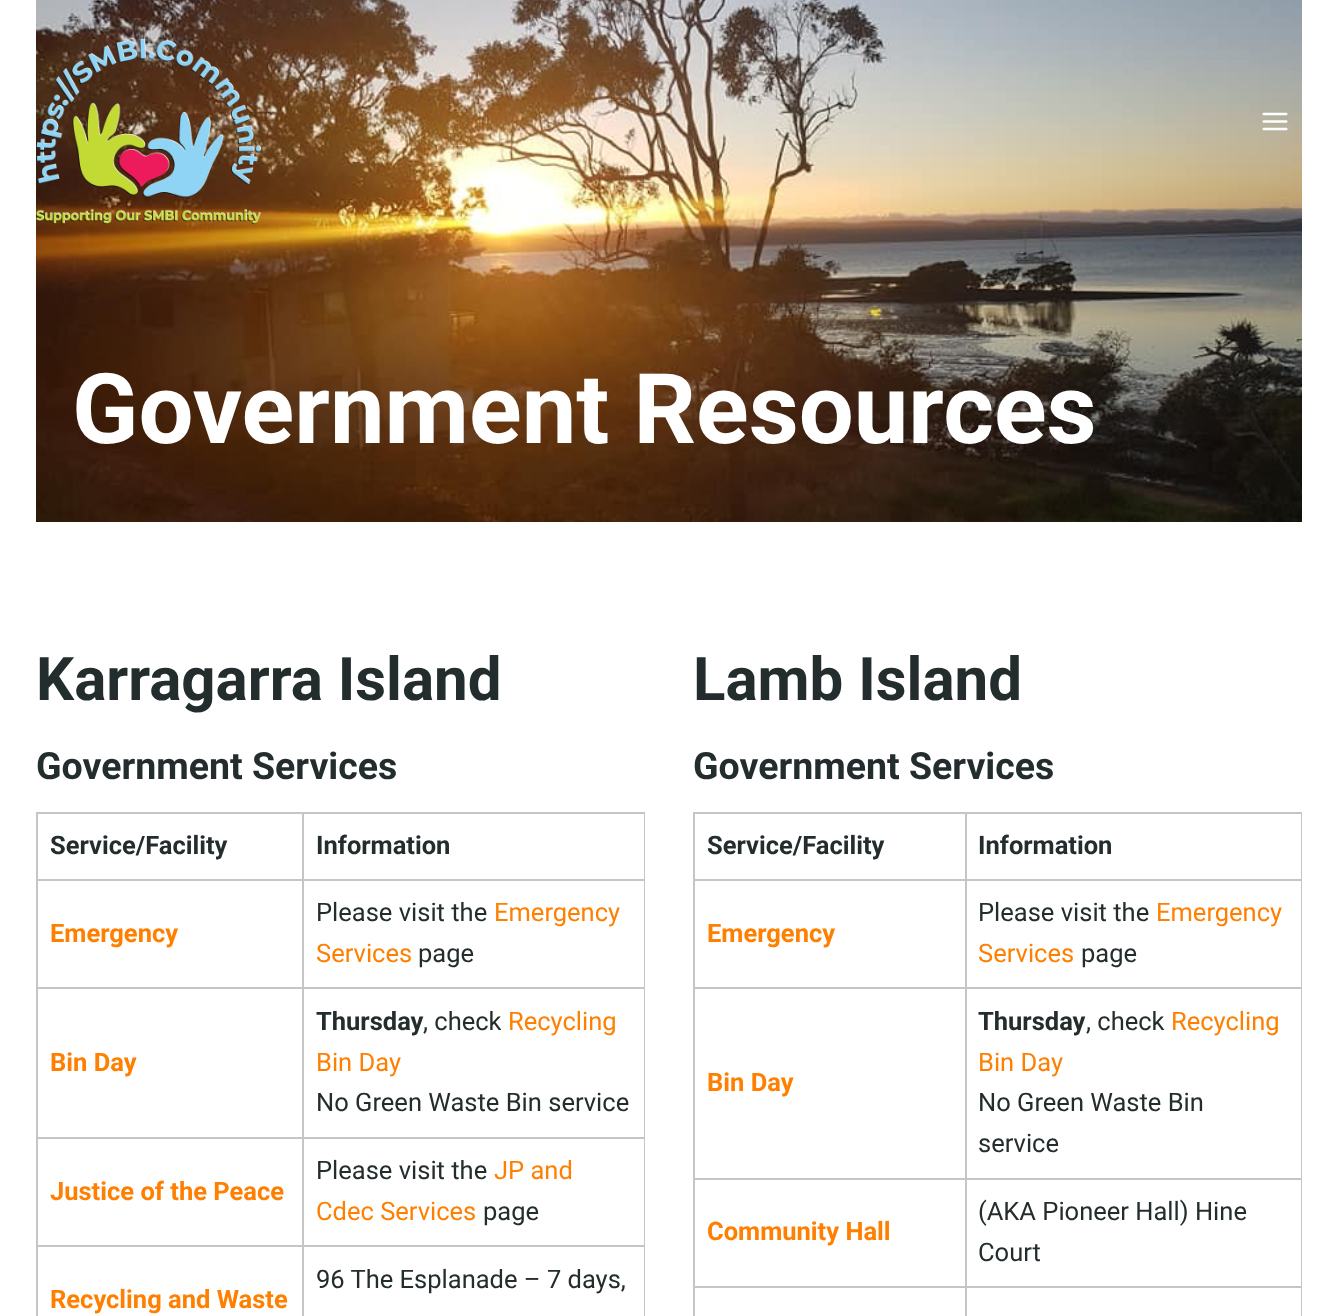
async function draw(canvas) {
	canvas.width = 1337;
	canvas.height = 1316;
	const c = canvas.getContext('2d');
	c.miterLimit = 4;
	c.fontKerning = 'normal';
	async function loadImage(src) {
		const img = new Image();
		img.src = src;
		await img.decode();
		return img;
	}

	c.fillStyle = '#fff';
	c.fillRect(0, 0, 1337, 1316);
	c.drawImage(await loadImage('img3.png'), 36, 0, 1266, 522);
	c.drawImage(await loadImage('img1.png'), 36, 38, 225, 187);
	c.drawImage(await loadImage('img2.png'), 1262, 112, 26, 19);
	c.font = 'bold 97.5px Roboto';
	c.fillText('Government Resources', 72, 443);
	c.font = 'bold 60px Roboto';
	c.fillStyle = '#242d2d';
	c.fillText('Karragarra Island', 36, 700);
	c.font = 'bold 37.5px Roboto';
	c.fillText('Government Services', 36, 779);
	for (const [x, y, w, h, color] of [
		[302, 812, 343, 2, '#c5c5c5'],
		[302, 879, 343, 2, '#c5c5c5'],
		[302, 987, 343, 2, '#c5c5c5'],
		[302, 1137, 343, 2, '#c5c5c5'],
		[302, 1245, 343, 2, '#c5c5c5'],
		[302, 1245, 2, 71, '#c5c5c5'],
		[36, 1245, 267, 2, '#c5c5c5'],
		[302, 1137, 2, 110, '#c5c5c5'],
		[36, 1137, 267, 2, '#c5c5c5'],
		[302, 987, 2, 152, '#c5c5c5'],
		[36, 987, 267, 2, '#c5c5c5'],
		[302, 879, 2, 110, '#c5c5c5'],
		[36, 879, 267, 2, '#c5c5c5'],
		[302, 812, 2, 69, '#c5c5c5'],
		[36, 812, 267, 2, '#c5c5c5'],
		[36, 1245, 2, 71, '#c5c5c5'],
		[36, 1137, 2, 110, '#c5c5c5'],
		[36, 987, 2, 152, '#c5c5c5'],
		[36, 879, 2, 110, '#c5c5c5'],
		[36, 812, 2, 69, '#c5c5c5'],
	]) {
		c.fillStyle = color;
		c.fillRect(x, y, w, h);
	}
	c.font = 'bold 25.5px Roboto';
	c.fillStyle = '#242d2d';
	c.fillText('Service/Facility', 50, 854);
	for (const [x, y, w, h, color] of [
		[644, 1245, 1, 71, '#c5c5c5'],
		[644, 1137, 1, 110, '#c5c5c5'],
		[644, 987, 1, 152, '#c5c5c5'],
		[644, 879, 1, 110, '#c5c5c5'],
		[644, 812, 1, 69, '#c5c5c5'],
	]) {
		c.fillStyle = color;
		c.fillRect(x, y, w, h);
	}
	c.fillStyle = '#242d2d';
	c.fillText('Information', 316, 854);
	c.fillStyle = '#ff7f00';
	c.fillText('Emergency', 50, 942);
	c.font = '25.5px Roboto';
	c.fillStyle = '#242d2d';
	c.fillText('Please visit the', 316, 921);
	c.fillStyle = '#ff7f00';
	c.fillText('Emergency', 494, 921);
	c.fillText('Services', 316, 962);
	c.fillStyle = '#242d2d';
	c.fillText('page', 418, 962);
	c.font = 'bold 25.5px Roboto';
	c.fillStyle = '#ff7f00';
	c.fillText('Bin Day', 50, 1071);
	c.fillStyle = '#242d2d';
	c.fillText('Thursday', 316, 1030);
	c.font = '25.5px Roboto';
	c.fillText(', check', 423, 1030);
	c.fillStyle = '#ff7f00';
	c.fillText('Recycling', 508, 1030);
	c.fillText('Bin Day', 316, 1071);
	c.fillStyle = '#242d2d';
	c.fillText('No Green Waste Bin service', 316, 1111);
	c.font = 'bold 25.5px Roboto';
	c.fillStyle = '#ff7f00';
	c.fillText('Justice of the Peace', 50, 1200);
	c.font = '25.5px Roboto';
	c.fillStyle = '#242d2d';
	c.fillText('Please visit the', 316, 1179);
	c.fillStyle = '#ff7f00';
	c.fillText('JP and', 494, 1179);
	c.fillText('Cdec Services', 316, 1220);
	c.fillStyle = '#242d2d';
	c.fillText('page', 483, 1220);
	c.fillText('96 The Esplanade – 7 days,', 316, 1288);
	c.font = 'bold 25.5px Roboto';
	c.fillStyle = '#ff7f00';
	c.fillText('Recycling and Waste', 50, 1308);
	c.font = 'bold 60px Roboto';
	c.fillStyle = '#242d2d';
	c.fillText('Lamb Island', 693, 700);
	c.font = 'bold 37.5px Roboto';
	c.fillText('Government Services', 693, 779);
	for (const [x, y, w, h, color] of [
		[965, 812, 337, 2, '#c5c5c5'],
		[965, 879, 337, 2, '#c5c5c5'],
		[965, 987, 337, 2, '#c5c5c5'],
		[965, 1178, 337, 2, '#c5c5c5'],
		[965, 1286, 337, 2, '#c5c5c5'],
		[965, 1286, 2, 30, '#c5c5c5'],
		[693, 1286, 273, 2, '#c5c5c5'],
		[965, 1178, 2, 109, '#c5c5c5'],
		[693, 1178, 273, 2, '#c5c5c5'],
		[965, 987, 2, 192, '#c5c5c5'],
		[693, 987, 273, 2, '#c5c5c5'],
		[965, 879, 2, 110, '#c5c5c5'],
		[693, 879, 273, 2, '#c5c5c5'],
		[965, 812, 2, 69, '#c5c5c5'],
		[693, 812, 273, 2, '#c5c5c5'],
		[693, 1286, 2, 30, '#c5c5c5'],
		[693, 1178, 2, 109, '#c5c5c5'],
		[693, 987, 2, 192, '#c5c5c5'],
		[693, 879, 2, 110, '#c5c5c5'],
		[693, 812, 2, 69, '#c5c5c5'],
	]) {
		c.fillStyle = color;
		c.fillRect(x, y, w, h);
	}
	c.font = 'bold 25.5px Roboto';
	c.fillStyle = '#242d2d';
	c.fillText('Service/Facility', 707, 854);
	for (const [x, y, w, h, color] of [
		[1301, 1286, 1, 30, '#c5c5c5'],
		[1301, 1178, 1, 109, '#c5c5c5'],
		[1301, 987, 1, 192, '#c5c5c5'],
		[1301, 879, 1, 110, '#c5c5c5'],
		[1301, 812, 1, 69, '#c5c5c5'],
	]) {
		c.fillStyle = color;
		c.fillRect(x, y, w, h);
	}
	c.fillStyle = '#242d2d';
	c.fillText('Information', 978, 854);
	c.fillStyle = '#ff7f00';
	c.fillText('Emergency', 707, 942);
	c.font = '25.5px Roboto';
	c.fillStyle = '#242d2d';
	c.fillText('Please visit the', 978, 921);
	c.fillStyle = '#ff7f00';
	c.fillText('Emergency', 1156, 921);
	c.fillText('Services', 978, 962);
	c.fillStyle = '#242d2d';
	c.fillText('page', 1081, 962);
	c.font = 'bold 25.5px Roboto';
	c.fillStyle = '#ff7f00';
	c.fillText('Bin Day', 707, 1091);
	c.fillStyle = '#242d2d';
	c.fillText('Thursday', 978, 1030);
	c.font = '25.5px Roboto';
	c.fillText(', check', 1086, 1030);
	c.fillStyle = '#ff7f00';
	c.fillText('Recycling', 1171, 1030);
	c.fillText('Bin Day', 978, 1071);
	c.fillStyle = '#242d2d';
	c.fillText('No Green Waste Bin', 978, 1111);
	c.fillText('service', 978, 1152);
	c.font = 'bold 25.5px Roboto';
	c.fillStyle = '#ff7f00';
	c.fillText('Community Hall', 707, 1240);
	c.font = '25.5px Roboto';
	c.fillStyle = '#242d2d';
	c.fillText('(AKA Pioneer Hall) Hine', 978, 1220);
	c.fillText('Court', 978, 1261);
}

draw(document.querySelector('canvas'));
